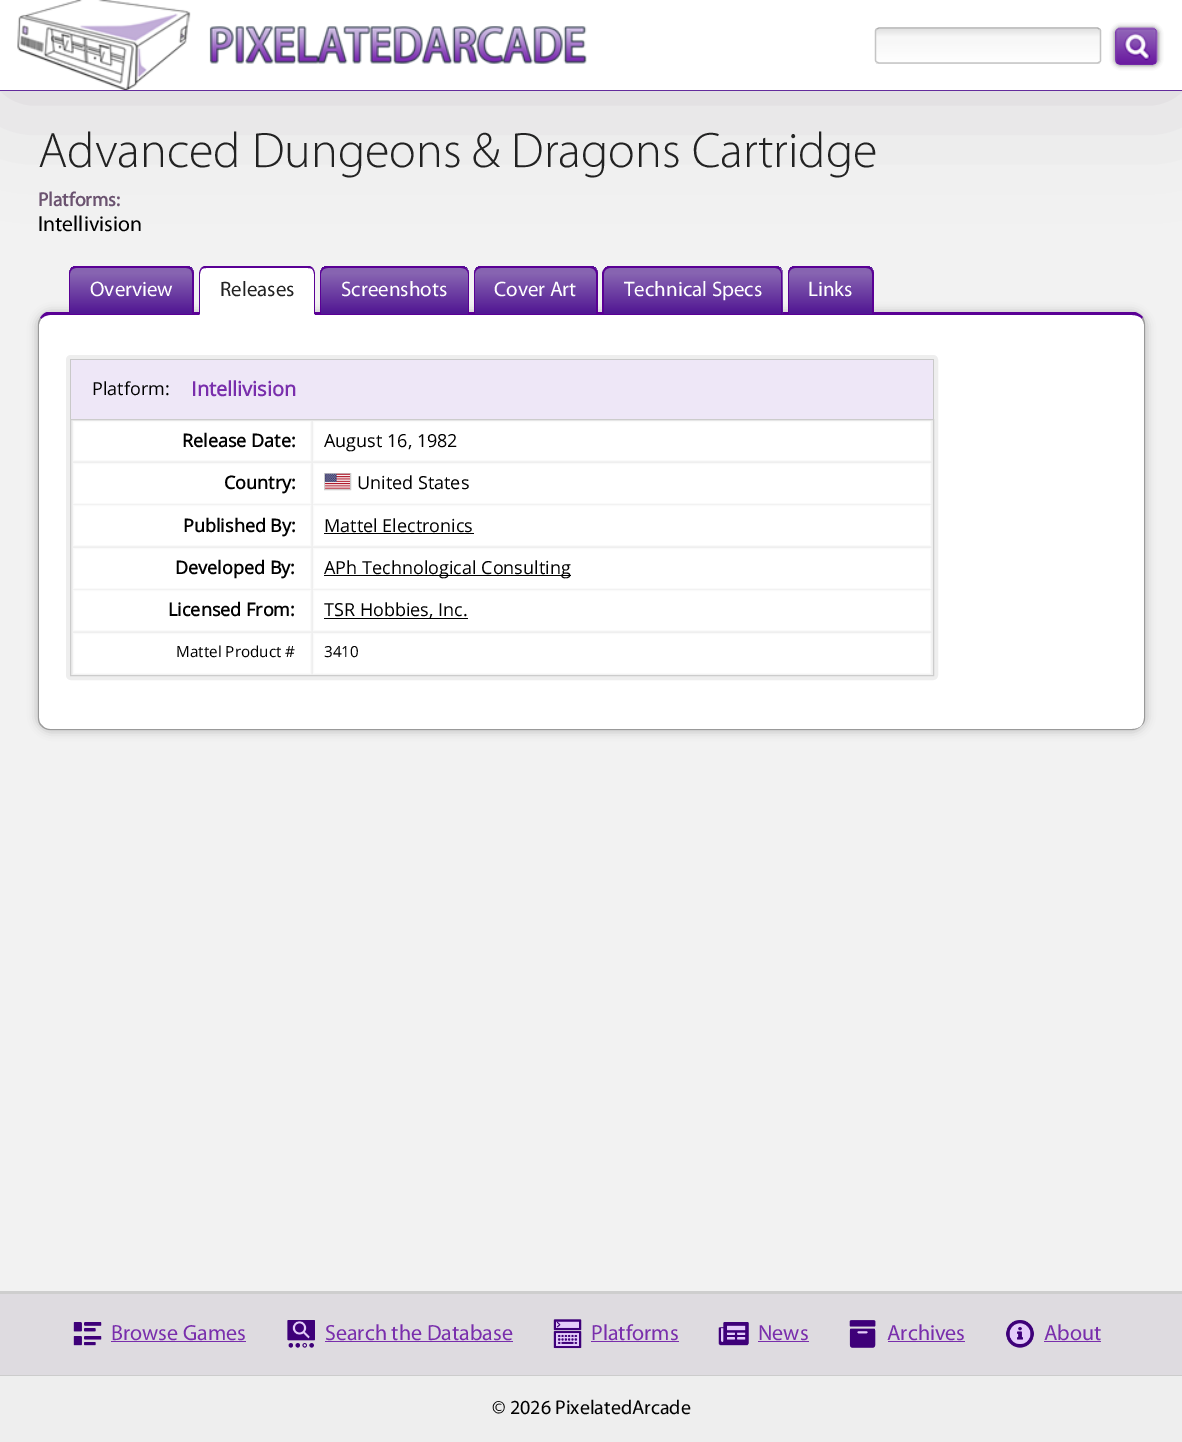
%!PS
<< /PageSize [1182 1442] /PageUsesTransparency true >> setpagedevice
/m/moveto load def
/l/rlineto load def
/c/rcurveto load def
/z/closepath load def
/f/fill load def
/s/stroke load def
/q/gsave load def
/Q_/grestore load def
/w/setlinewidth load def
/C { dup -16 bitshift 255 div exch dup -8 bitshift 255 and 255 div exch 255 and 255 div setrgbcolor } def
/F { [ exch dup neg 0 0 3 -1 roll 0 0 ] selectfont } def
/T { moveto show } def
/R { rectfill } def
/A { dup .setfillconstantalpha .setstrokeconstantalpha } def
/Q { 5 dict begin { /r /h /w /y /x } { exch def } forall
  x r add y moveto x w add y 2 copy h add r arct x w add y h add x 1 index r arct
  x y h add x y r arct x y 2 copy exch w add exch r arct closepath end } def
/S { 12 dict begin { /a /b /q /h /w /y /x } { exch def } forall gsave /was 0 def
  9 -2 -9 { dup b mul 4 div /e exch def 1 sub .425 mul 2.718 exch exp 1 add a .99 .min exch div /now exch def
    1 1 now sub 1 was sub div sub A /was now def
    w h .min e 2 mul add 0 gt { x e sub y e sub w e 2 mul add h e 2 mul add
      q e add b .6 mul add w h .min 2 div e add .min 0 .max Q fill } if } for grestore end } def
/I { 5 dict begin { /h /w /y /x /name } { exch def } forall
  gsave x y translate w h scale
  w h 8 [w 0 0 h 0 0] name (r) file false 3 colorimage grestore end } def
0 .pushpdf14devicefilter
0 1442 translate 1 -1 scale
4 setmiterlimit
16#F2F2F2 C
0 0 1182 1442 R
16#6B5370 C
0 0 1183 91 0 59 .22 S
16#FFFFFF C
0 0 1182 90 R
16#632C9C C
0 90 1182 1 R
(1.rgb) 17 0 570 90 I
q
875 28 226 36 4 Q clip newpath
q 875 29 m 226 0 l 0 34 l -226 0 l z clip newpath
<< /ShadingType 2 /ColorSpace /DeviceRGB /Coords [988 29 988 63] /Extend [true true] /Function << /FunctionType 3 /Domain [0 1] /Functions [<< /FunctionType 2 /Domain [0 1] /C0 [.89 .89 .89] /C1 [.89 .89 .89] /N 1 >> << /FunctionType 2 /Domain [0 1] /C0 [.89 .89 .89] /C1 [.969 .969 .969] /N 1 >> << /FunctionType 2 /Domain [0 1] /C0 [.969 .969 .969] /C1 [.969 .969 .969] /N 1 >> << /FunctionType 2 /Domain [0 1] /C0 [.969 .969 .969] /C1 [1 1 1] /N 1 >>] /Bounds [.02 .23 .35] /Encode [0 1 0 1 0 1 0 1] >> >> shfill Q_
q 875 63 m 226 0 l 0 1 l -226 0 l z clip newpath
<< /ShadingType 2 /ColorSpace /DeviceRGB /Coords [988 62 988 96] /Extend [true true] /Function << /FunctionType 3 /Domain [0 1] /Functions [<< /FunctionType 2 /Domain [0 1] /C0 [.89 .89 .89] /C1 [.89 .89 .89] /N 1 >> << /FunctionType 2 /Domain [0 1] /C0 [.89 .89 .89] /C1 [.969 .969 .969] /N 1 >> << /FunctionType 2 /Domain [0 1] /C0 [.969 .969 .969] /C1 [.969 .969 .969] /N 1 >> << /FunctionType 2 /Domain [0 1] /C0 [.969 .969 .969] /C1 [1 1 1] /N 1 >>] /Bounds [.02 .23 .35] /Encode [0 1 0 1 0 1 0 1] >> >> shfill Q_
Q_
16#AEAEAE C
1.2 w
876.5 29 m 2.5 -1 l 218.5 0 l 2 1 l s
16#C4C4C4 C
1099.5 29 m 1 .5 1 1.5 1 2 c 0 29 l 0 1 0 1.5 -1 2 c s
16#C3C3C3 C
1099.5 62 m -2 1 l -218.5 0 l -2.5 -1 l s
16#C5C5C5 C
876.5 62 m -.5 -.5 -1 -1 -1 -2 c 0 -29 l 0 -.5 .5 -1.5 1 -2 c s
16#000000 C
1115 28 43 37 5 2.5 .55 S
(2.rgb) 1114 27 44 38 I
/Myriad-Light 50.1 F
16#222222 C
(Advanced Dungeons & Dragons Cartridge) 38 167 T
/Myriad-Bold 19.5 F
16#6B5370 C
(Platforms:) 38 206 T
/Myriad-Regular 21.75 F
16#000000 C
(Intellivision) 38 231 T
q
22 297 m 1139 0 l 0 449 l -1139 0 l z 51 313 m 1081 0 l 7 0 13 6 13 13 c 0 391 l 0 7 -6 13 -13 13 c -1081 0 l -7 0 -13 -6 -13 -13 c 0 -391 l 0 -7 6 -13 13 -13 c z eoclip newpath
38 313 1107 417 13 5 .29 S
Q_
16#FFFFFF C
50 315 m 1082 0 l 7 0 12 4 12 10 c 0 393 l 0 6 -5 11 -12 11 c -1082 0 l -6 0 -11 -5 -11 -11 c 0 -393 l 0 -6 5 -10 11 -10 c z f
16#5A0095 C
50 315 m -4 0 -7 2 -9 4 c -1 -1 l 2 -3 4 -5 7 -6 c 1088 0 l 3 1 6 3 8 5 c -1 2 l -2 -3 -6 -4 -10 -4 c z f
q
77 266 m 109 0 l 4.5 0 8 3.5 8 8 c 0 40 l -125 0 l 0 -40 l 0 -4.5 3.5 -8 8 -8 c z clip newpath
q 69 268 m 125 0 l 0 46 l -125 0 l z clip newpath
<< /ShadingType 2 /ColorSpace /DeviceRGB /Coords [131 268 131 314] /Extend [true true] /Function << /FunctionType 3 /Domain [0 1] /Functions [<< /FunctionType 2 /Domain [0 1] /C0 [.529 .392 .694] /C1 [.529 .392 .694] /N 1 >> << /FunctionType 2 /Domain [0 1] /C0 [.529 .392 .694] /C1 [.322 .094 .58] /N 1 >> << /FunctionType 2 /Domain [0 1] /C0 [.322 .094 .58] /C1 [.322 .094 .58] /N 1 >>] /Bounds [.12 .97] /Encode [0 1 0 1 0 1] >> >> shfill Q_
q 69 266 m 125 0 l 0 2 l -125 0 l z clip newpath
<< /ShadingType 2 /ColorSpace /DeviceRGB /Coords [131 221 131 268] /Extend [true true] /Function << /FunctionType 3 /Domain [0 1] /Functions [<< /FunctionType 2 /Domain [0 1] /C0 [.529 .392 .694] /C1 [.529 .392 .694] /N 1 >> << /FunctionType 2 /Domain [0 1] /C0 [.529 .392 .694] /C1 [.322 .094 .58] /N 1 >> << /FunctionType 2 /Domain [0 1] /C0 [.322 .094 .58] /C1 [.322 .094 .58] /N 1 >>] /Bounds [.12 .97] /Encode [0 1 0 1 0 1] >> >> shfill Q_
Q_
76 266 m 110 0 l 4 0 8 4 8 8 c 0 40 l -125 0 l 0 -40 l 0 -4 3 -8 7 -8 c z 76 268 m 110 0 l 4 0 6 2 6 6 c 0 40 l -122 0 l 0 -40 l 0 -4 3 -6 6 -6 c z eofill
/Myriad-Regular 21 F
16#FFFFFF C
(Overview) 90 296 T
207 266 m 100 0 l 4.5 0 8 3.5 8 8 c 0 41 l -116 0 l 0 -41 l 0 -4.5 3.5 -8 8 -8 c z f
16#222222 C
(Releases) 220 296 T
16#5A0095 C
206 268 m -1 0 -3 0 -4 1 c -1 -1 l 3 -2 l 106 0 l 3 2 l -1 1 l -1 -1 -3 -1 -4 -1 c z f
315 315 m 0 -41 l 0 -2 -1 -4 -2 -6 c -1 1 l 1 1 2 3 2 5 c 0 40 l z f
16#FFFFFF C
315 315 m -1 -1 l -114 0 l -1 1 l z f
16#5A0095 C
199 315 m 0 -41 l 0 -2 1 -4 2 -6 c 1 1 l -1 1 -2 3 -2 5 c 0 40 l z f
q
328 266 m 133 0 l 4.5 0 8 3.5 8 8 c 0 40 l -149 0 l 0 -40 l 0 -4.5 3.5 -8 8 -8 c z clip newpath
q 320 268 m 149 0 l 0 46 l -149 0 l z clip newpath
<< /ShadingType 2 /ColorSpace /DeviceRGB /Coords [394 268 394 314] /Extend [true true] /Function << /FunctionType 3 /Domain [0 1] /Functions [<< /FunctionType 2 /Domain [0 1] /C0 [.529 .392 .694] /C1 [.529 .392 .694] /N 1 >> << /FunctionType 2 /Domain [0 1] /C0 [.529 .392 .694] /C1 [.322 .094 .58] /N 1 >> << /FunctionType 2 /Domain [0 1] /C0 [.322 .094 .58] /C1 [.322 .094 .58] /N 1 >>] /Bounds [.12 .97] /Encode [0 1 0 1 0 1] >> >> shfill Q_
q 320 266 m 149 0 l 0 2 l -149 0 l z clip newpath
<< /ShadingType 2 /ColorSpace /DeviceRGB /Coords [394 221 394 268] /Extend [true true] /Function << /FunctionType 3 /Domain [0 1] /Functions [<< /FunctionType 2 /Domain [0 1] /C0 [.529 .392 .694] /C1 [.529 .392 .694] /N 1 >> << /FunctionType 2 /Domain [0 1] /C0 [.529 .392 .694] /C1 [.322 .094 .58] /N 1 >> << /FunctionType 2 /Domain [0 1] /C0 [.322 .094 .58] /C1 [.322 .094 .58] /N 1 >>] /Bounds [.12 .97] /Encode [0 1 0 1 0 1] >> >> shfill Q_
Q_
328 266 m 133 0 l 4 0 8 4 8 8 c 0 40 l -149 0 l 0 -40 l 0 -4 3 -8 8 -8 c z 328 268 m 133 0 l 4 0 7 2 7 6 c 0 40 l -147 0 l 0 -40 l 0 -4 3 -6 7 -6 c z eofill
16#FFFFFF C
(Screenshots) 341 296 T
q
482 266 m 108 0 l 4.5 0 8 3.5 8 8 c 0 40 l -124 0 l 0 -40 l 0 -4.5 3.5 -8 8 -8 c z clip newpath
q 474 268 m 124 0 l 0 46 l -124 0 l z clip newpath
<< /ShadingType 2 /ColorSpace /DeviceRGB /Coords [536 268 536 314] /Extend [true true] /Function << /FunctionType 3 /Domain [0 1] /Functions [<< /FunctionType 2 /Domain [0 1] /C0 [.529 .392 .694] /C1 [.529 .392 .694] /N 1 >> << /FunctionType 2 /Domain [0 1] /C0 [.529 .392 .694] /C1 [.322 .094 .58] /N 1 >> << /FunctionType 2 /Domain [0 1] /C0 [.322 .094 .58] /C1 [.322 .094 .58] /N 1 >>] /Bounds [.12 .97] /Encode [0 1 0 1 0 1] >> >> shfill Q_
q 474 266 m 124 0 l 0 2 l -124 0 l z clip newpath
<< /ShadingType 2 /ColorSpace /DeviceRGB /Coords [536 221 536 268] /Extend [true true] /Function << /FunctionType 3 /Domain [0 1] /Functions [<< /FunctionType 2 /Domain [0 1] /C0 [.529 .392 .694] /C1 [.529 .392 .694] /N 1 >> << /FunctionType 2 /Domain [0 1] /C0 [.529 .392 .694] /C1 [.322 .094 .58] /N 1 >> << /FunctionType 2 /Domain [0 1] /C0 [.322 .094 .58] /C1 [.322 .094 .58] /N 1 >>] /Bounds [.12 .97] /Encode [0 1 0 1 0 1] >> >> shfill Q_
Q_
16#5A0095 C
481 266 m 109 0 l 4 0 8 4 8 8 c 0 40 l -124 0 l 0 -40 l 0 -4 3 -8 7 -8 c z 481 268 m 109 0 l 3 0 6 2 6 6 c 0 40 l -121 0 l 0 -40 l 0 -4 3 -6 6 -6 c z eofill
16#FFFFFF C
(Cover Art) 494 296 T
q
611 266 m 164 0 l 4.5 0 8 3.5 8 8 c 0 40 l -180 0 l 0 -40 l 0 -4.5 3.5 -8 8 -8 c z clip newpath
q 603 268 m 180 0 l 0 46 l -180 0 l z clip newpath
<< /ShadingType 2 /ColorSpace /DeviceRGB /Coords [693 268 693 314] /Extend [true true] /Function << /FunctionType 3 /Domain [0 1] /Functions [<< /FunctionType 2 /Domain [0 1] /C0 [.529 .392 .694] /C1 [.529 .392 .694] /N 1 >> << /FunctionType 2 /Domain [0 1] /C0 [.529 .392 .694] /C1 [.322 .094 .58] /N 1 >> << /FunctionType 2 /Domain [0 1] /C0 [.322 .094 .58] /C1 [.322 .094 .58] /N 1 >>] /Bounds [.12 .97] /Encode [0 1 0 1 0 1] >> >> shfill Q_
q 603 266 m 180 0 l 0 2 l -180 0 l z clip newpath
<< /ShadingType 2 /ColorSpace /DeviceRGB /Coords [693 221 693 268] /Extend [true true] /Function << /FunctionType 3 /Domain [0 1] /Functions [<< /FunctionType 2 /Domain [0 1] /C0 [.529 .392 .694] /C1 [.529 .392 .694] /N 1 >> << /FunctionType 2 /Domain [0 1] /C0 [.529 .392 .694] /C1 [.322 .094 .58] /N 1 >> << /FunctionType 2 /Domain [0 1] /C0 [.322 .094 .58] /C1 [.322 .094 .58] /N 1 >>] /Bounds [.12 .97] /Encode [0 1 0 1 0 1] >> >> shfill Q_
Q_
16#5A0095 C
610 266 m 165 0 l 4 0 7 4 7 8 c 0 40 l -180 0 l 0 -40 l 0 -4 4 -8 8 -8 c z 610 268 m 165 0 l 3 0 6 2 6 6 c 0 40 l -177 0 l 0 -40 l 0 -4 3 -6 6 -6 c z eofill
16#FFFFFF C
(Technical Specs) 624 296 T
q
796 266 m 70 0 l 4.5 0 8 3.5 8 8 c 0 40 l -86 0 l 0 -40 l 0 -4.5 3.5 -8 8 -8 c z clip newpath
q 788 268 m 86 0 l 0 46 l -86 0 l z clip newpath
<< /ShadingType 2 /ColorSpace /DeviceRGB /Coords [831 268 831 314] /Extend [true true] /Function << /FunctionType 3 /Domain [0 1] /Functions [<< /FunctionType 2 /Domain [0 1] /C0 [.529 .392 .694] /C1 [.529 .392 .694] /N 1 >> << /FunctionType 2 /Domain [0 1] /C0 [.529 .392 .694] /C1 [.322 .094 .58] /N 1 >> << /FunctionType 2 /Domain [0 1] /C0 [.322 .094 .58] /C1 [.322 .094 .58] /N 1 >>] /Bounds [.12 .97] /Encode [0 1 0 1 0 1] >> >> shfill Q_
q 788 266 m 86 0 l 0 2 l -86 0 l z clip newpath
<< /ShadingType 2 /ColorSpace /DeviceRGB /Coords [831 221 831 268] /Extend [true true] /Function << /FunctionType 3 /Domain [0 1] /Functions [<< /FunctionType 2 /Domain [0 1] /C0 [.529 .392 .694] /C1 [.529 .392 .694] /N 1 >> << /FunctionType 2 /Domain [0 1] /C0 [.529 .392 .694] /C1 [.322 .094 .58] /N 1 >> << /FunctionType 2 /Domain [0 1] /C0 [.322 .094 .58] /C1 [.322 .094 .58] /N 1 >>] /Bounds [.12 .97] /Encode [0 1 0 1 0 1] >> >> shfill Q_
Q_
16#5A0095 C
795 266 m 71 0 l 4 0 8 4 8 8 c 0 40 l -86 0 l 0 -40 l 0 -4 3 -8 7 -8 c z 795 268 m 71 0 l 4 0 6 2 6 6 c 0 40 l -83 0 l 0 -40 l 0 -4 3 -6 6 -6 c z eofill
16#FFFFFF C
(Links) 808 296 T
16#999999 C
1145 718 m 0 -393 l 0 -3 -1 -5 -2 -8 c -1 2 l 1 2 2 4 2 6 c 0 393 l 0 3 -1 6 -3 8 c 3 -2 4 -5 4 -8 c z f
50 730 m 1082 0 l 4 0 7 -2 9 -4 c -2 2 -5 3 -9 3 c -1082 0 l -3 0 -6 -1 -8 -4 c -1 1 l 2 2 5 4 9 4 c z f
41 726 m -2 -2 -3 -5 -3 -8 c 0 -393 l 0 -3 1 -5 2 -7 c 1 1 l -1 2 -2 4 -2 6 c 0 393 l 0 3 1 6 3 7 c z f
16#EEEEEE C
4 w
68 357 868 321 3 Q s
16#EEE7F7 C
71 360 862 59 R
16#C9C9C9 C
70 359 864 1 R
933 359 1 60 R
70 359 1 60 R
/OpenSans-Regular 18 F
16#000000 C
(Platform:) 92 395 T
/OpenSans-Bold 20 F
16#792EAC C
(Intellivision) 191 396 T
16#EFEFEF C
70.5 419.5 m 863 0 l 0 256 l -863 0 l z q f Q_
16#CCCCCC C
1 w
s
16#FFFFFF C
73.5 421.5 m 237 0 l 0 39 l -237 0 l z q f Q_
16#FAFAFA C
s
/OpenSans-Bold 18 F
16#000000 C
(Release Date:) 182 447 T
16#FFFFFF C
313.5 421.5 m 617 0 l 0 39 l -617 0 l z q f Q_
16#FAFAFA C
s
/OpenSans-Regular 18 F
16#000000 C
(August 16, 1982) 324 447 T
16#FFFFFF C
73.5 463.5 m 237 0 l 0 40 l -237 0 l z q f Q_
16#FAFAFA C
s
/OpenSans-Bold 18 F
16#000000 C
(Country:) 224 489 T
16#FFFFFF C
313.5 463.5 m 617 0 l 0 40 l -617 0 l z q f Q_
16#FAFAFA C
s
16#CCCCCC C
324.5 473.5 26 16 rectstroke
(3.rgb) 325 473 25 16 I
/OpenSans-Regular 18 F
16#000000 C
(United States) 357 489 T
16#FFFFFF C
73.5 505.5 m 237 0 l 0 40 l -237 0 l z q f Q_
16#FAFAFA C
s
/OpenSans-Bold 18 F
16#000000 C
(Published By:) 183 532 T
16#FFFFFF C
313.5 505.5 m 617 0 l 0 40 l -617 0 l z q f Q_
16#FAFAFA C
s
/OpenSans-Regular 18 F
16#000000 C
(Mattel Electronics) 324 532 T
324 533 150 1 R
16#FFFFFF C
73.5 548.5 m 237 0 l 0 40 l -237 0 l z q f Q_
16#FAFAFA C
s
/OpenSans-Bold 18 F
16#000000 C
(Developed By:) 175 574 T
16#FFFFFF C
313.5 548.5 m 617 0 l 0 40 l -617 0 l z q f Q_
16#FAFAFA C
s
16#000000 C
324 575 247 1 R
/OpenSans-Regular 18 F
(APh Technological Consulting) 324 574 T
16#FFFFFF C
73.5 590.5 m 237 0 l 0 40 l -237 0 l z q f Q_
16#FAFAFA C
s
/OpenSans-Bold 18 F
16#000000 C
(Licensed From:) 168 616 T
16#FFFFFF C
313.5 590.5 m 617 0 l 0 40 l -617 0 l z q f Q_
16#FAFAFA C
s
16#000000 C
324 618 144 1 R
/OpenSans-Regular 18 F
(TSR Hobbies, Inc.) 324 616 T
16#FFFFFF C
73.5 633.5 m 237 0 l 0 40 l -237 0 l z q f Q_
16#FAFAFA C
s
/OpenSans-Regular 15.25 F
16#000000 C
(Mattel Product #) 176 657 T
16#FFFFFF C
313.5 633.5 m 617 0 l 0 40 l -617 0 l z q f Q_
16#FAFAFA C
s
16#000000 C
(3410) 324 657 T
16#EEEEEE C
0 1376 1182 66 R
16#CECECE C
0 1291 1182 3 R
16#DEDBE0 C
0 1294 1182 81 R
16#CCCCCC C
0 1375 1182 1 R
(4.rgb) 73 1322 29 24 I
/Myriad-Regular 22 F
16#792EAC C
(Browse Games) 111 1340 T
111 1341 135 1 R
(5.rgb) 287 1320 28 28 I
(Search the Database) 325 1340 T
325 1341 188 1 R
(6.rgb) 553 1319 29 30 I
(Platforms) 591 1340 T
591 1341 88 1 R
(7.rgb) 718 1322 31 24 I
(News) 758 1340 T
758 1341 51 1 R
(8.rgb) 849 1320 27 28 I
(Archives) 887 1340 T
888 1341 77 1 R
(9.rgb) 1006 1320 28 28 I
(About) 1044 1340 T
1044 1341 57 1 R
/Myriad-Regular 20 F
16#000000 C
(© 2026 PixelatedArcade) 492 1414 T
.poppdf14devicefilter showpage
